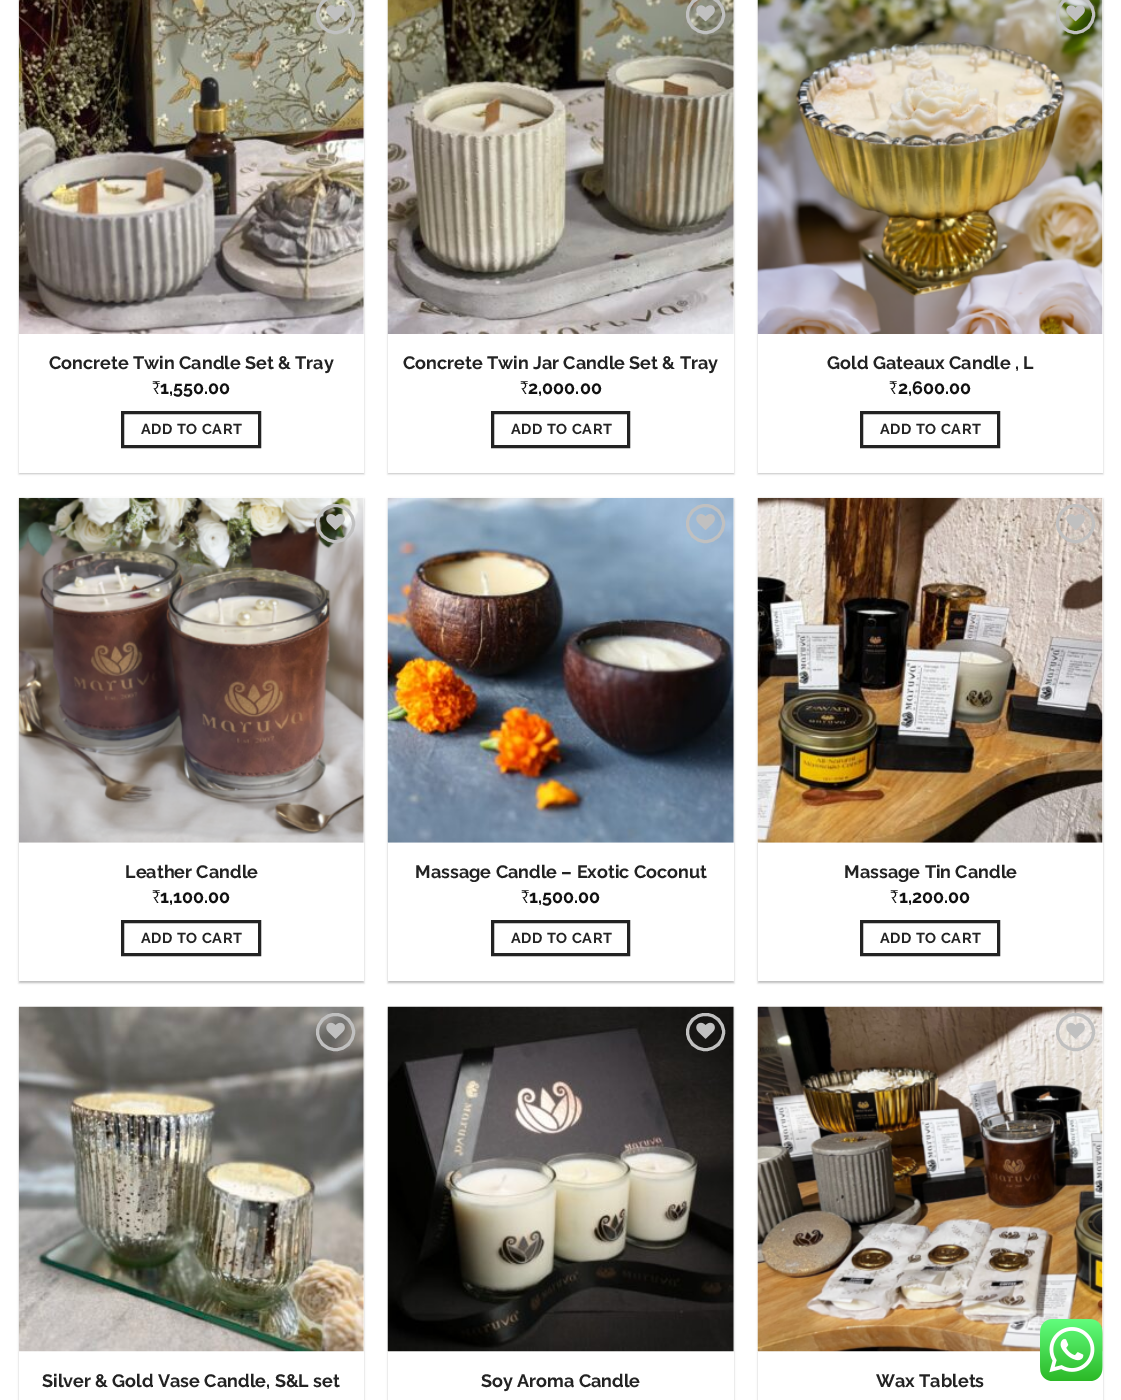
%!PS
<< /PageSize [1121 1400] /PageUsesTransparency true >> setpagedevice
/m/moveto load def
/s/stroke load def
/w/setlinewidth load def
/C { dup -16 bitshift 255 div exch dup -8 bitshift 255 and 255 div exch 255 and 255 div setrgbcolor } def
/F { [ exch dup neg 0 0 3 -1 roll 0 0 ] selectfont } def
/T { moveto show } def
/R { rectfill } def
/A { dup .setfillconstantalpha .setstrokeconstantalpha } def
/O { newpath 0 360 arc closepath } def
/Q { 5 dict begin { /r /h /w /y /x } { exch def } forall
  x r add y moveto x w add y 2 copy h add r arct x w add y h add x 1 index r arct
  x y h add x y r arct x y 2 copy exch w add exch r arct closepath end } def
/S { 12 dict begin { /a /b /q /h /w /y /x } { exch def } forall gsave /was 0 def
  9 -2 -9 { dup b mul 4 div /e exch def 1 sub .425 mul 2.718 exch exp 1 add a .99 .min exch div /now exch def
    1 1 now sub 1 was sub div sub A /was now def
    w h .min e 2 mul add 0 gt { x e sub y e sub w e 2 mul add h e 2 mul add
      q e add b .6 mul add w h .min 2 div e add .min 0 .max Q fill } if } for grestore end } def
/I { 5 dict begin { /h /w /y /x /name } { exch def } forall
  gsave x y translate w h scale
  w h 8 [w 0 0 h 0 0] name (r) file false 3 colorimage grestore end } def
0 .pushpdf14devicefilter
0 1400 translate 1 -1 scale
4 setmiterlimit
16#FFFFFF C
0 0 1121 1400 R
16#000000 C
19 -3 345 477 0 1 .24 S
16#FFFFFF C
19 0 345 473 R
(2.rgb) 18 0 346 334 I
16#C0C0C0 C
3 w
335.5 14.5 18 O s
(1.rgb) 326 5 19 17 I
/Raleway-Bold 18 F
16#232323 C
(Concrete Twin Candle Set & Tray) 49 369 T
/Raleway-Regular 18 F
16#111111 C
(₹) 152 394 T
/Raleway-Bold 18 F
(1,550.00) 160 394 T
16#232323 C
122.5 412.5 137 34 rectstroke
/Raleway-Bold 14.5 F
141 434 m .5 0 (ADD TO CART) ashow
16#000000 C
388 -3 346 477 0 1 .24 S
16#FFFFFF C
388 0 346 473 R
(4.rgb) 387 0 347 334 I
16#C0C0C0 C
705.5 14.5 18 O s
(3.rgb) 696 5 19 17 I
/Raleway-Bold 18 F
16#232323 C
(Concrete Twin Jar Candle Set & Tray) 403 369 T
/Raleway-Regular 18 F
16#111111 C
(₹) 520 394 T
/Raleway-Bold 18 F
(2,000.00) 528 394 T
16#232323 C
492.5 412.5 136 34 rectstroke
/Raleway-Bold 14.5 F
511 434 m .5 0 (ADD TO CART) ashow
16#000000 C
758 -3 345 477 0 1 .24 S
16#FFFFFF C
758 0 345 473 R
(6.rgb) 757 0 346 334 I
16#C0C0C0 C
1075.5 14.5 18 O s
(5.rgb) 1066 5 19 17 I
/Raleway-Bold 18 F
16#232323 C
(Gold Gateaux Candle , L) 827 369 T
/Raleway-Regular 18 F
16#111111 C
(₹) 889 394 T
/Raleway-Bold 18 F
(2,600.00) 898 394 T
16#232323 C
861.5 412.5 137 34 rectstroke
/Raleway-Bold 14.5 F
880 434 m .5 0 (ADD TO CART) ashow
16#000000 C
19 499 345 484 0 1 .24 S
21 501 340 479 0 2 .12 S
16#FFFFFF C
19 498 345 483 R
(7.rgb) 18 497 346 346 I
16#C0C0C0 C
335.5 523.5 18 O s
(8.rgb) 326 514 19 16 I
/Raleway-Bold 18 F
16#232323 C
(Leather Candle) 125 878 T
/Raleway-Regular 18 F
16#111111 C
(₹) 152 903 T
/Raleway-Bold 18 F
(1,100.00) 160 903 T
16#232323 C
122.5 921.5 137 33 rectstroke
/Raleway-Bold 14.5 F
141 943 m .5 0 (ADD TO CART) ashow
16#000000 C
388 499 346 484 0 1 .24 S
390 501 341 479 0 2 .12 S
16#FFFFFF C
388 498 346 483 R
(9.rgb) 387 497 347 346 I
16#C0C0C0 C
705.5 523.5 18 O s
(10.rgb) 696 514 19 16 I
/Raleway-Bold 18 F
16#232323 C
(Massage Candle – Exotic Coconut) 415 878 T
/Raleway-Regular 18 F
16#111111 C
(₹) 521 903 T
/Raleway-Bold 18 F
(1,500.00) 529 903 T
16#232323 C
492.5 921.5 136 33 rectstroke
/Raleway-Bold 14.5 F
511 943 m .5 0 (ADD TO CART) ashow
16#000000 C
758 499 345 484 0 1 .24 S
760 501 340 479 0 2 .12 S
16#FFFFFF C
758 498 345 483 R
(11.rgb) 757 497 346 346 I
16#C0C0C0 C
1075.5 523.5 18 O s
(12.rgb) 1066 514 19 16 I
/Raleway-Bold 18 F
16#232323 C
(Massage Tin Candle) 844 878 T
/Raleway-Regular 18 F
16#111111 C
(₹) 890 903 T
/Raleway-Bold 18 F
(1,200.00) 899 903 T
16#232323 C
861.5 921.5 137 33 rectstroke
/Raleway-Bold 14.5 F
880 943 m .5 0 (ADD TO CART) ashow
16#000000 C
19 1008 345 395 0 1 .24 S
16#FFFFFF C
19 1006 345 394 R
(13.rgb) 18 1006 346 346 I
16#C0C0C0 C
317.5 1014.5 36 35 17.5 Q s
(14.rgb) 326 1022 19 17 I
/Raleway-Bold 18 F
16#232323 C
(Silver & Gold Vase Candle, S&L set) 42 1387 T
16#000000 C
388 1008 346 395 0 1 .24 S
16#FFFFFF C
388 1006 346 394 R
(15.rgb) 387 1006 347 346 I
16#C0C0C0 C
687.5 1014.5 36 35 17.5 Q s
(16.rgb) 696 1022 19 17 I
16#232323 C
(Soy Aroma Candle) 481 1387 T
16#000000 C
758 1008 345 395 0 1 .24 S
16#FFFFFF C
758 1006 345 394 R
(17.rgb) 757 1006 346 346 I
16#C0C0C0 C
1057.5 1014.5 36 35 17.5 Q s
(18.rgb) 1066 1022 19 17 I
16#232323 C
(Wax Tablets) 876 1387 T
(19.rgb) 1040 1319 63 62 I
.poppdf14devicefilter showpage
